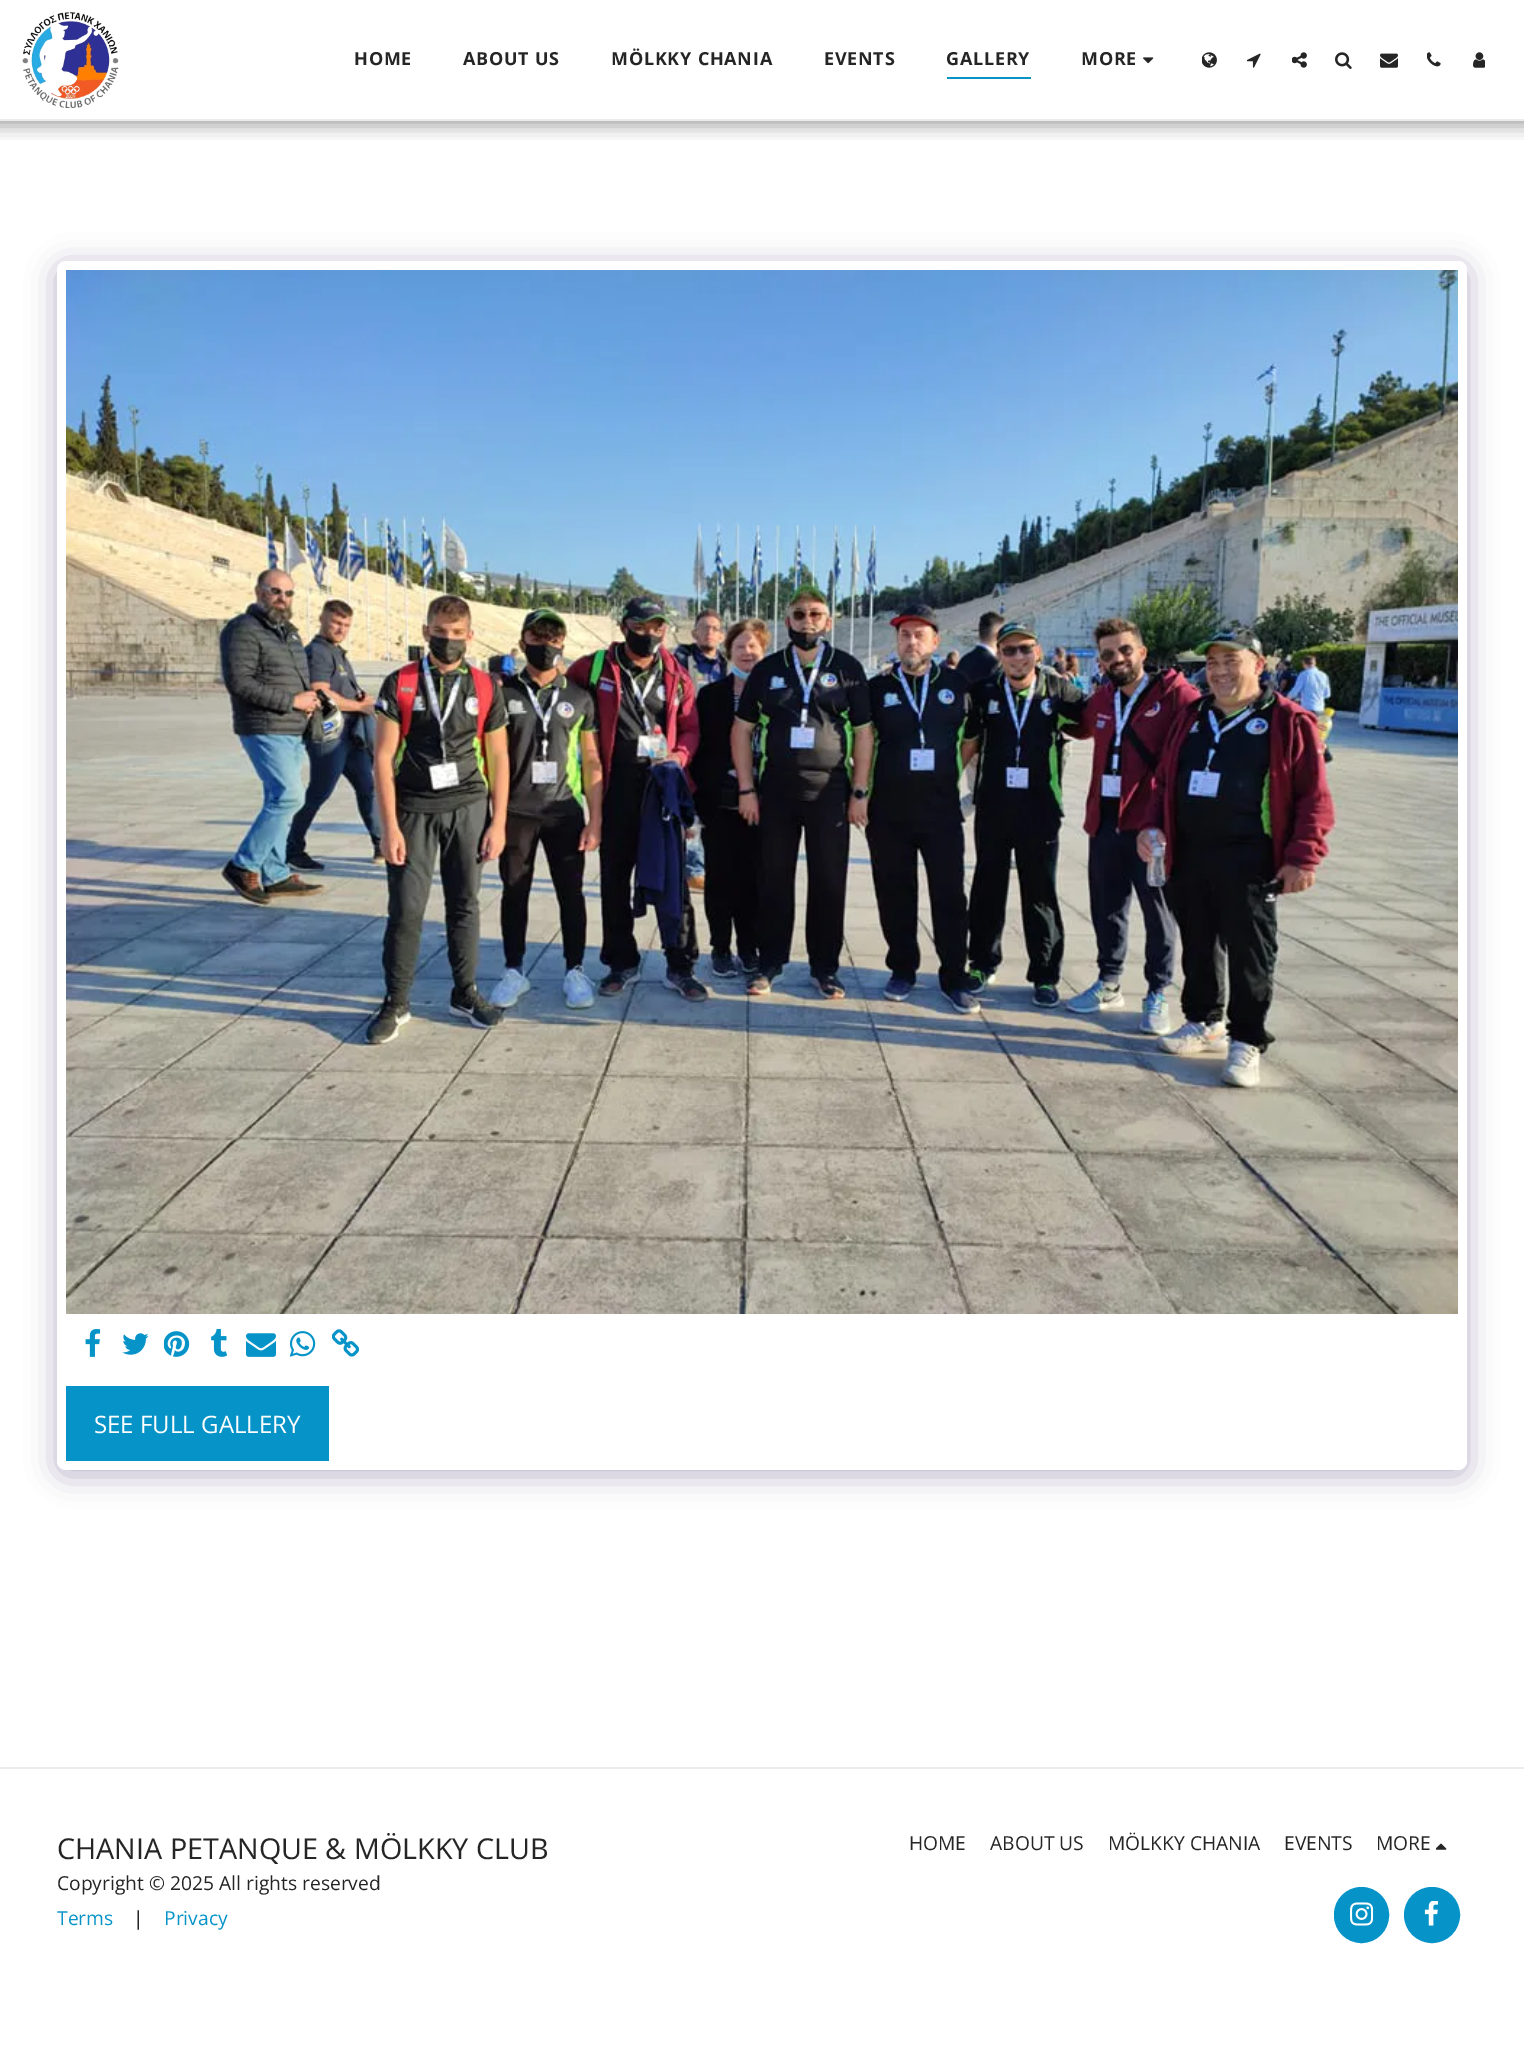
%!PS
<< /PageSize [1524 2058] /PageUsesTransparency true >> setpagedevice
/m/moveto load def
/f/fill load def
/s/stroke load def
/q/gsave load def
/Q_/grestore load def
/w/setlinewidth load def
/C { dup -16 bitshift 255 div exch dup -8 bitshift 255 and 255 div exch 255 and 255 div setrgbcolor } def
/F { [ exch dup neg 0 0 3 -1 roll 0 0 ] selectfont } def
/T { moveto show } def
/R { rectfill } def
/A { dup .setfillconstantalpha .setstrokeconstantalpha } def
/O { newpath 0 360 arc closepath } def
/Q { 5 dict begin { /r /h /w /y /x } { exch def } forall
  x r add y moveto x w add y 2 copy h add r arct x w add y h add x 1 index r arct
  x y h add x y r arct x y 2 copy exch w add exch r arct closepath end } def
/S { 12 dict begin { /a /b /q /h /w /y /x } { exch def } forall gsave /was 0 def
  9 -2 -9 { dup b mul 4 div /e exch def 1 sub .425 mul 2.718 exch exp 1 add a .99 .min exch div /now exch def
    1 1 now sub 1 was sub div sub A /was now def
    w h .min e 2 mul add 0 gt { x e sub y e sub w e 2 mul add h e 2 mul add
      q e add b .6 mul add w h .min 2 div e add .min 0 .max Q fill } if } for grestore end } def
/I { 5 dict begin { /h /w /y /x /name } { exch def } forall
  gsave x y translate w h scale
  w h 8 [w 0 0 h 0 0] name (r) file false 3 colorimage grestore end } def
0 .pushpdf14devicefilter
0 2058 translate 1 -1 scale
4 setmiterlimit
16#FFFFFF C
0 0 1524 2058 R
q
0 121 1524 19 rectclip
16#000000 C
-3 0 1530 126 0 9 .35 S
Q_
16#EBEBEB C
0 119 1524 2 R
(1.rgb) 22 12 97 96 I
/OpenSans-Bold 18 F
16#252525 C
354 65 m .75 0 (HOME) ashow
463 65 m .75 0 (ABOUT US) ashow
611 65 m .75 0 (MÖLKKY CHANIA) ashow
824 65 m .75 0 (EVENTS) ashow
946 65 m .75 0 (GALLERY) ashow
16#0693C8 C
947 77 84 2 R
16#252525 C
1081 65 m .75 0 (MORE) ashow
(2.rgb) 1143 57 11 7 I
(3.rgb) 1202 52 15 16 I
(4.rgb) 1247 53 14 15 I
(5.rgb) 1292 52 15 16 I
(6.rgb) 1335 52 17 17 I
(7.rgb) 1380 53 18 15 I
(8.rgb) 1427 52 14 15 I
(9.rgb) 1473 52 12 16 I
16#4D3F7A C
57 266 1410 1209 9 15 .4 S
16#FFFFFF C
57 261 1410 1209 9 Q f
(10.rgb) 66 270 1392 1044 I
(11.rgb) 85 1329 16 28 I
(12.rgb) 122 1333 27 22 I
(13.rgb) 164 1331 26 26 I
(14.rgb) 211 1329 17 28 I
(15.rgb) 246 1333 30 24 I
(16.rgb) 290 1331 26 26 I
(17.rgb) 332 1329 27 28 I
16#0693C8 C
66 1386 263 75 R
/OpenSans-Regular 24 F
16#FFFFFF C
(SEE FULL GALLERY) 94 1433 T
16#EBEBEB C
0 1767 1524 2 R
/OpenSans-Regular 28.75 F
16#252525 C
(CHANIA PETANQUE & MÖLKKY CLUB) 57 1859 T
/OpenSans-Regular 19.25 F
(Copyright © 2025 All rights reserved) 57 1890 T
16#0693C8 C
(Terms) 57 1925 T
16#252525 C
(|) 133 1925 T
16#0693C8 C
(Privacy) 164 1925 T
16#252525 C
(HOME) 909 1850 T
(ABOUT US) 990 1850 T
(MÖLKKY CHANIA) 1108 1850 T
(EVENTS) 1284 1850 T
(MORE) 1376 1850 T
(18.rgb) 1436 1843 11 7 I
16#0693C8 C
1335 1888 53 54 26.5 Q q f Q_
2 w
s
(19.rgb) 1350 1902 23 24 I
1432 1915 27 O q f Q_
s
(20.rgb) 1424 1901 14 25 I
.poppdf14devicefilter showpage
